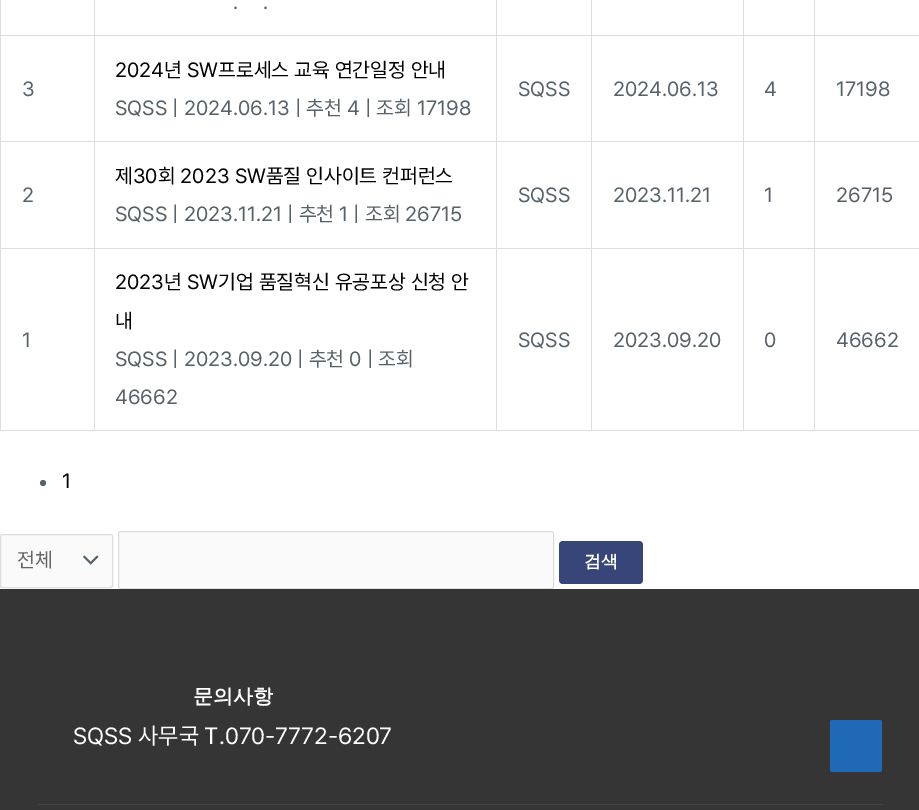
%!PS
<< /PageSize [919 810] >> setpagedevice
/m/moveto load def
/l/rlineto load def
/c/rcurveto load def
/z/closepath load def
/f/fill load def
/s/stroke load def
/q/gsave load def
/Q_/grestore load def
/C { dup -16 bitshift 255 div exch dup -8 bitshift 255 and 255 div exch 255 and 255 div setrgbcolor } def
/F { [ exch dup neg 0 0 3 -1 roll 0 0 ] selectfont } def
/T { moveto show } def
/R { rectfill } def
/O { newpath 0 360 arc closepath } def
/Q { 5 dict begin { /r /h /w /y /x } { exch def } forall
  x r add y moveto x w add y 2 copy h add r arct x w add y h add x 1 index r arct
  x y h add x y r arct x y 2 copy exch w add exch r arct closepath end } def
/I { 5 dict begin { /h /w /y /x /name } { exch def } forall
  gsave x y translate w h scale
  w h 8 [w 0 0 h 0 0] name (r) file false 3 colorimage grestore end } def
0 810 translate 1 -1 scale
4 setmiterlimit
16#FFFFFF C
0 0 919 810 R
16#DDDDDD C
0 0 1 431 R
94 0 1 431 R
1 35 94 1 R
496 0 1 431 R
95 35 403 1 R
/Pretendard-Regular 20.5 F
16#576168 C
(.) 233 9 T
(.) 263 9 T
16#DDDDDD C
591 0 1 431 R
498 35 95 1 R
743 0 1 431 R
593 35 151 1 R
814 0 1 431 R
744 35 175 1 R
1 141 918 1 R
16#576168 C
(3) 22 96 T
16#030000 C
(2024년 SW프로세스 교육 연간일정 안내) 115 77 T
16#576168 C
(SQSS | 2024.06.13 | 추천 4 | 조회 17198) 115 115 T
(SQSS) 518 96 T
(2024.06.13) 613 96 T
(4) 764 96 T
(17198) 836 96 T
16#DDDDDD C
1 248 918 1 R
16#576168 C
(2) 22 202 T
16#030000 C
(제30회 2023 SW품질 인사이트 컨퍼런스) 115 183 T
16#576168 C
(SQSS | 2023.11.21 | 추천 1 | 조회 26715) 115 221 T
(SQSS) 518 202 T
(2023.11.21) 613 202 T
(1) 764 202 T
(26715) 836 202 T
16#DDDDDD C
1 430 918 1 R
16#576168 C
(1) 22 347 T
16#030000 C
(2023년 SW기업 품질혁신 유공포상 신청 안) 115 289 T
(내) 115 328 T
16#576168 C
(SQSS | 2023.09.20 | 추천 0 | 조회) 115 366 T
(46662) 115 404 T
(SQSS) 518 347 T
(2023.09.20) 613 347 T
(0) 764 347 T
(46662) 836 347 T
43 483 3 O f
16#030000 C
(1) 62 488 T
16#FAFAFA C
0 534 113 54 2.5 Q f
(1.rgb) 83 555 16 10 I
16#DDDDDD C
.5 534.5 112 53 2 Q s
16#666666 C
(전체) 17 567 T
16#FAFAFA C
118.5 531.5 435 57 2 Q q f Q_
16#DDDDDD C
s
16#384578 C
559 541 84 43 4 Q f
/WenQuanYiZenHei-Bold 17 F
16#FFFFFF C
(검색) 584 567 T
16#353535 C
0 589 919 221 R
/WenQuanYiZenHei-Bold 20 F
16#FFFFFF C
(문의사항) 193 703 T
/Pretendard-Regular 23.3 F
(SQSS 사무국 T.070-7772-6207) 73 744 T
16#444444 C
38 804 845 1 R
16#2069B6 C
880 772 m -48 0 l -1 0 -2 -1 -2 -2 c 0 -48 l 0 -1 1 -2 2 -2 c 48 0 l 1 0 2 1 2 2 c 0 48 l 0 1 -1 2 -2 2 c z f
showpage
